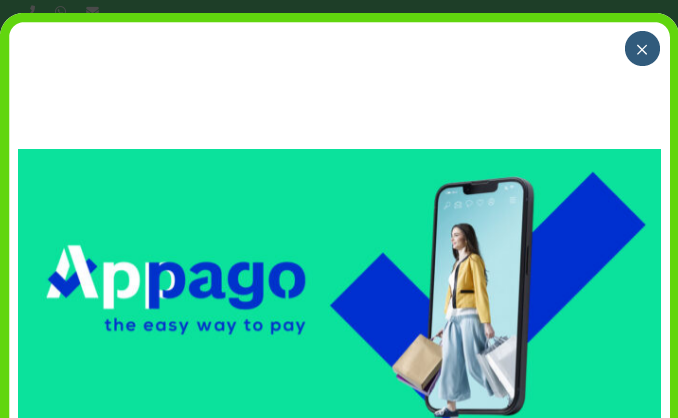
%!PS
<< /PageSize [678 418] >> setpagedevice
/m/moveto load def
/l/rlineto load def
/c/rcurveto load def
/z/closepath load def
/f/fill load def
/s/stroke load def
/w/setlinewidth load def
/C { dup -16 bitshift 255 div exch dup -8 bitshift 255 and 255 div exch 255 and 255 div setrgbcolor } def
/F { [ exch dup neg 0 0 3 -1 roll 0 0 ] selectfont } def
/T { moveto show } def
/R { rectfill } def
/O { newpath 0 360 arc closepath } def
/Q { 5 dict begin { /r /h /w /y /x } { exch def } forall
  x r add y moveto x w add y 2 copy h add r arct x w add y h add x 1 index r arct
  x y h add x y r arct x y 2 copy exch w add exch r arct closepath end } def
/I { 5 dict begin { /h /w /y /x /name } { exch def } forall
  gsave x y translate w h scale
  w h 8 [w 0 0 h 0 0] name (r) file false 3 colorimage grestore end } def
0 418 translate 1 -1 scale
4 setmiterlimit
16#1E3E28 C
0 0 678 418 R
(1.rgb) 23 5 12 9 I
(2.rgb) 55 6 11 7 I
(3.rgb) 86 6 13 7 I
16#FFFFFF C
24 13 m 631 0 l 13.5 0 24 10.5 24 24 c 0 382 l -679 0 l 0 -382 l 0 -13.5 10.5 -24 24 -24 c z f
16#61D60E C
9 w
4.5 17.5 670 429 19.5 Q s
16#315B7C C
642.5 48.5 17.5 O f
/LiberationSerif-Regular 25 F
16#FFFFFF C
(×) 635 58 T
(4.rgb) 18 149 643 269 I
showpage
